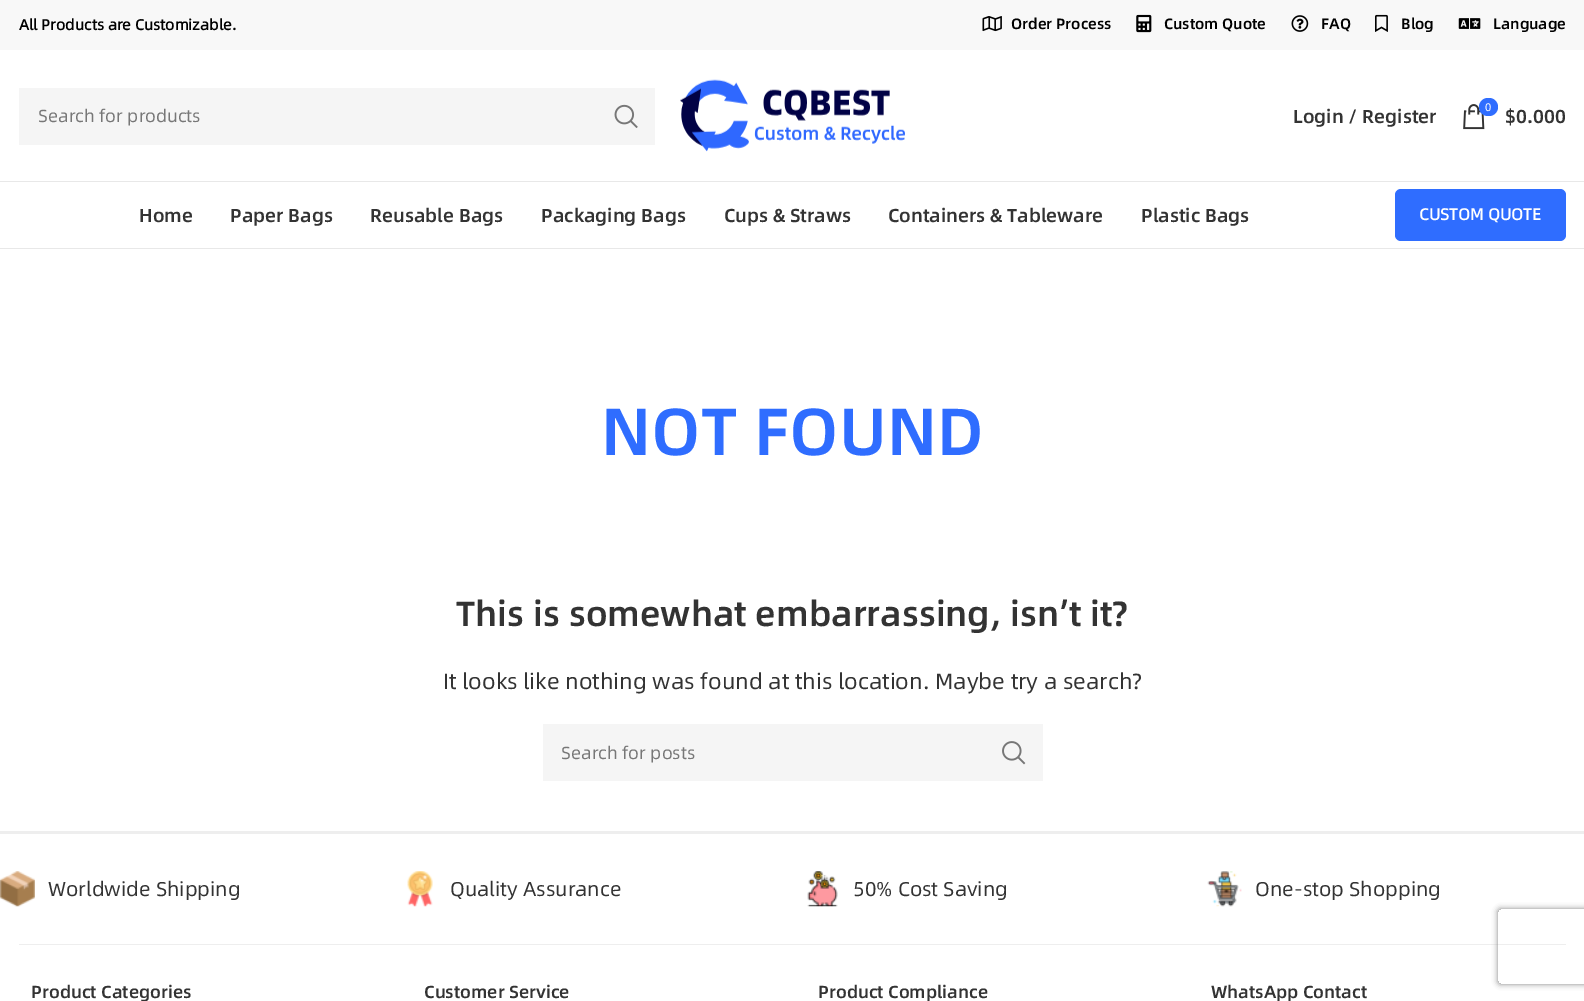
%!PS
<< /PageSize [1584 1001] /PageUsesTransparency true >> setpagedevice
/m/moveto load def
/l/rlineto load def
/c/rcurveto load def
/z/closepath load def
/f/fill load def
/q/gsave load def
/Q_/grestore load def
/C { dup -16 bitshift 255 div exch dup -8 bitshift 255 and 255 div exch 255 and 255 div setrgbcolor } def
/F { [ exch dup neg 0 0 3 -1 roll 0 0 ] selectfont } def
/T { moveto show } def
/R { rectfill } def
/A { dup .setfillconstantalpha .setstrokeconstantalpha } def
/Q { 5 dict begin { /r /h /w /y /x } { exch def } forall
  x r add y moveto x w add y 2 copy h add r arct x w add y h add x 1 index r arct
  x y h add x y r arct x y 2 copy exch w add exch r arct closepath end } def
/S { 12 dict begin { /a /b /q /h /w /y /x } { exch def } forall gsave /was 0 def
  9 -2 -9 { dup b mul 4 div /e exch def 1 sub .425 mul 2.718 exch exp 1 add a .99 .min exch div /now exch def
    1 1 now sub 1 was sub div sub A /was now def
    w h .min e 2 mul add 0 gt { x e sub y e sub w e 2 mul add h e 2 mul add
      q e add b .6 mul add w h .min 2 div e add .min 0 .max Q fill } if } for grestore end } def
/I { 5 dict begin { /h /w /y /x /name } { exch def } forall
  gsave x y translate w h scale
  w h 8 [w 0 0 h 0 0] name (r) file false 3 colorimage grestore end } def
0 .pushpdf14devicefilter
0 1001 translate 1 -1 scale
4 setmiterlimit
16#FFFFFF C
0 0 1584 1001 R
16#F8F8F8 C
0 0 1584 50 R
/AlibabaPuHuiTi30-Bold 15 F
16#000000 C
(All Products are Customizable.) 19 30 T
(1.rgb) 982 16 20 16 I
/AlibabaPuHuiTi30-SemiBold 15 F
(Order Process) 1011 29 T
(2.rgb) 1136 14 16 19 I
(Custom Quote) 1164 29 T
(3.rgb) 1291 15 18 17 I
(FAQ) 1321 29 T
(4.rgb) 1375 14 13 18 I
(Blog) 1401 29 T
(5.rgb) 1458 18 23 11 I
(Language) 1493 29 T
16#E8E8E8 C
0 181 1584 1 R
16#F5F5F5 C
19 88 636 57 R
/AlibabaPuHuiTi30-Regular 17.5 F
16#777777 C
(Search for products) 38 122 T
(6.rgb) 614 104 24 24 I
(7.rgb) 680 79 225 73 I
/AlibabaPuHuiTi30-SemiBold 18.75 F
16#333333 C
(Login / Register) 1293 123 T
(8.rgb) 1463 104 22 26 I
16#2F6DFF C
1479 98 19 18 9 Q f
/AlibabaPuHuiTi30-Regular 11 F
16#FFFFFF C
(0) 1485 111 T
/AlibabaPuHuiTi30-SemiBold 18.75 F
16#333333 C
($0.000) 1505 123 T
16#E8E8E8 C
0 248 1584 1 R
16#333333 C
(Home) 139 222 T
(Paper Bags) 230 222 T
(Reusable Bags) 370 222 T
(Packaging Bags) 541 222 T
(Cups & Straws) 724 222 T
(Containers & Tableware) 888 222 T
(Plastic Bags) 1141 222 T
16#2F6DFF C
1395 189 171 52 6 Q f
/AlibabaPuHuiTi30-Bold 16.25 F
16#FFFFFF C
(CUSTOM QUOTE) 1419 220 T
/AlibabaPuHuiTi30-SemiBold 66.5 F
16#2F6DFF C
(NOT FOUND) 601 455 T
/AlibabaPuHuiTi30-SemiBold 35 F
16#333333 C
(This is somewhat embarrassing, isn’t it?) 456 626 T
/AlibabaPuHuiTi30-Regular 22 F
(It looks like nothing was found at this location. Maybe try a search?) 443 689 T
16#F5F5F5 C
543 724 500 57 R
/AlibabaPuHuiTi30-Regular 17.5 F
16#777777 C
(Search for posts) 561 759 T
(9.rgb) 1002 741 24 24 I
16#EEEEEE C
0 831 1584 3 R
(10.rgb) 0 871 35 36 I
/AlibabaPuHuiTi30-Regular 20 F
16#333333 C
(Worldwide Shipping) 48 896 T
(11.rgb) 407 871 26 36 I
(Quality Assurance) 450 896 T
(12.rgb) 807 871 31 36 I
(50% Cost Saving) 853 896 T
(13.rgb) 1207 871 35 36 I
(One-stop Shopping) 1255 896 T
16#EEEEEE C
19 944 1547 1 R
/AlibabaPuHuiTi30-SemiBold 17.5 F
16#333333 C
(Product Categories) 31 998 T
(Customer Service) 424 998 T
(Product Compliance) 818 998 T
(WhatsApp Contact) 1211 998 T
q
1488 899 m 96 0 l 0 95 l -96 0 l z 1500.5 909 m 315 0 l 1.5 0 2.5 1 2.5 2.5 c 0 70 l 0 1.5 -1 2.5 -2.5 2.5 c -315 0 l -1.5 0 -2.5 -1 -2.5 -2.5 c 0 -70 l 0 -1.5 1 -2.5 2.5 -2.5 c z eoclip newpath
16#808080 C
1498 909 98 75 2.5 3 1 S
Q_
.poppdf14devicefilter showpage
